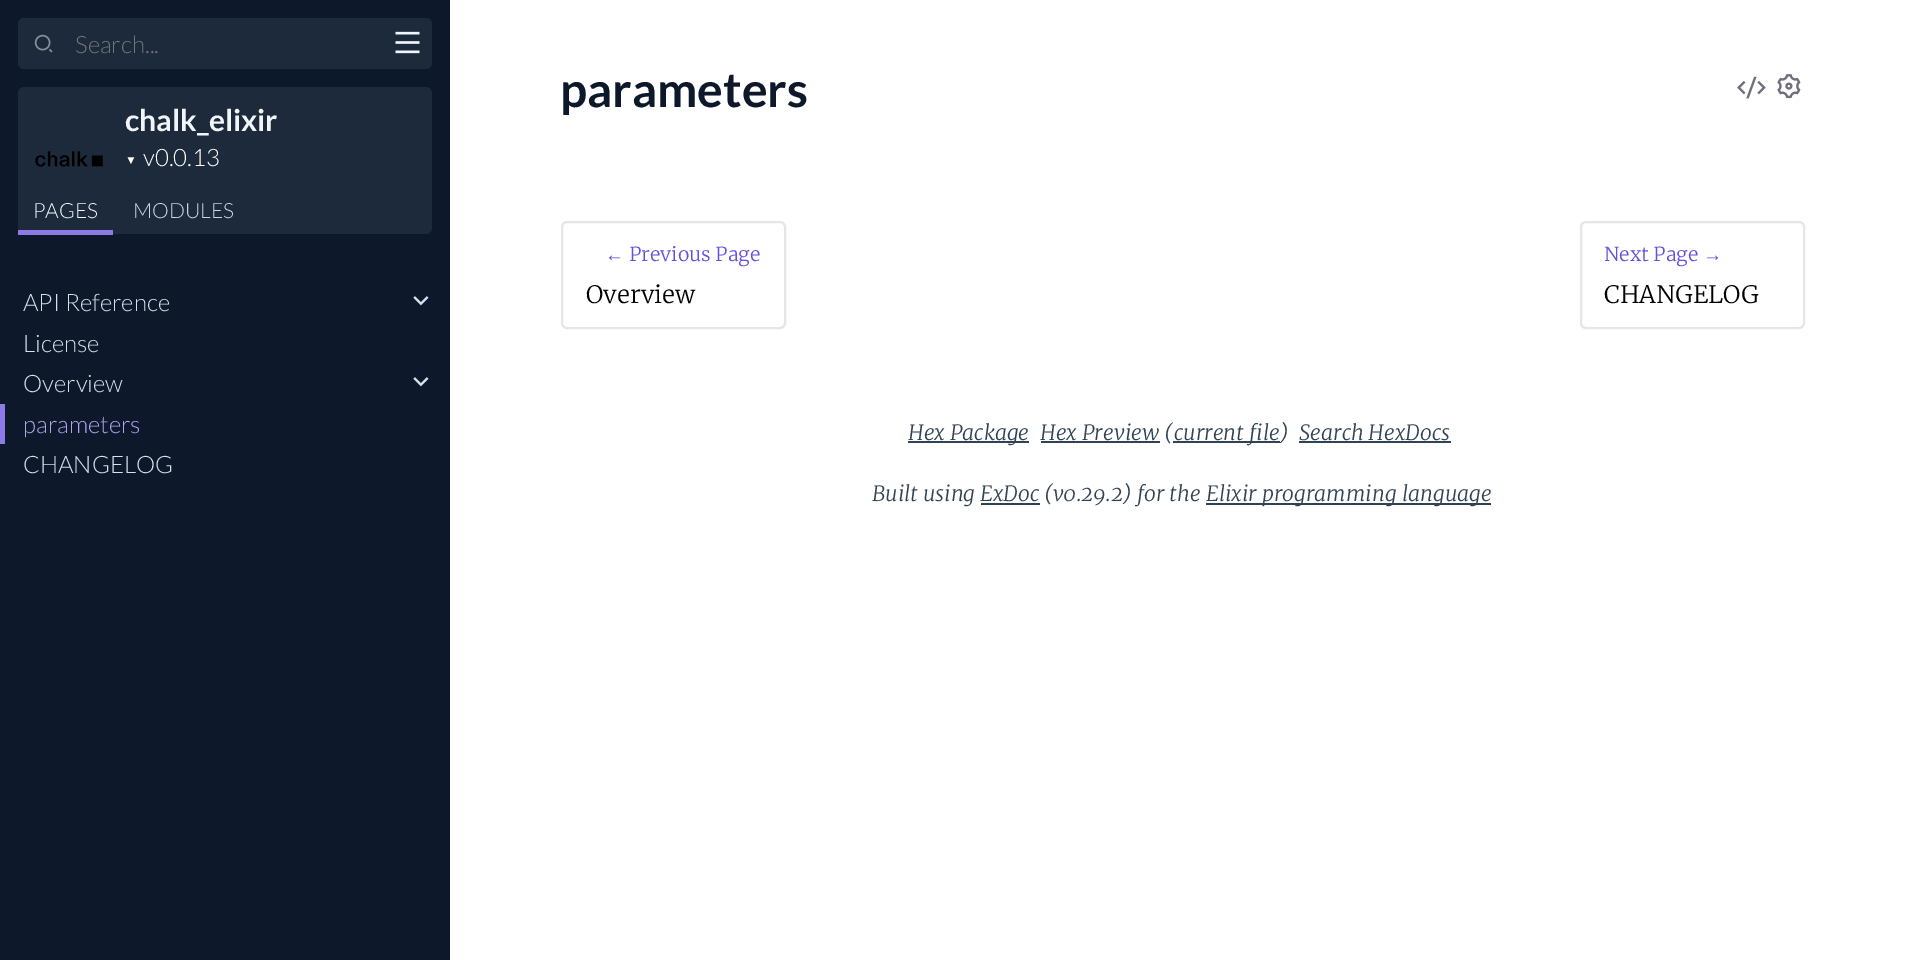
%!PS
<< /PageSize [1913 960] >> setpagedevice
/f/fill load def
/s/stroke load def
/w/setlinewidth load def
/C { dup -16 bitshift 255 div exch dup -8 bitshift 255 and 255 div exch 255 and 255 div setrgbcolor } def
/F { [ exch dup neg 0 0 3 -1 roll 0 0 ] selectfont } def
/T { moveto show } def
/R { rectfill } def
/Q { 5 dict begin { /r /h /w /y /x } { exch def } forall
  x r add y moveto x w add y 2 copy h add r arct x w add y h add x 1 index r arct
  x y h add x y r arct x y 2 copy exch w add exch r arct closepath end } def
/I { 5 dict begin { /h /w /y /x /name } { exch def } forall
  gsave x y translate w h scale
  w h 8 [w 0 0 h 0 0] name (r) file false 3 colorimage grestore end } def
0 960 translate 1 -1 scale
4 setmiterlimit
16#FFFFFF C
0 0 1913 960 R
16#0D192B C
0 0 450 960 R
16#1C2A3B C
18 18 414 51 6 Q f
(1.rgb) 34 34 19 19 I
/Lato-Light 24 F
16#757575 C
(Search...) 75 53 T
16#1C2A3B C
18 87 414 147 6 Q f
(2.rgb) 35 151 68 16 I
/Lato-Bold 30 F
16#F0F5F9 C
(chalk_elixir) 125 131 T
/LiberationSans-Regular 12 F
16#FFFFFF C
(▼) 125 164 T
/Lato-Light 24 F
(v0.0.13) 143 166 T
16#8C7AE6 C
18 230 95 5 R
/Lato-Light 21 F
16#F0F5F9 C
(PAGES) 33 218 T
16#CCD6E1 C
(MODULES) 133 218 T
/Lato-Light 24 F
16#D8E0E9 C
(API Reference) 23 311 T
(3.rgb) 413 296 16 10 I
(License) 23 352 T
(Overview) 23 392 T
(3.rgb) 413 377 16 10 I
16#8C7AE6 C
0 404 5 40 R
16#B1A5EE C
(parameters) 23 433 T
16#D8E0E9 C
(CHANGELOG) 23 473 T
(4.rgb) 395 31 25 23 I
/Lato-Bold 48 F
16#0D192B C
(parameters) 560 107 T
(5.rgb) 1737 76 29 23 I
(6.rgb) 1777 74 24 25 I
16#E6E6E6 C
2 w
562 222 223 106 5 Q s
/LiberationSerif-Regular 19.25 F
16#674FDE C
(←) 605 261 T
/Merriweather-Light 19.25 F
(Previous Page) 629 261 T
/Merriweather-Light 24 F
16#000000 C
(Overview) 586 303 T
16#E6E6E6 C
1581 222 223 106 5 Q s
/Merriweather-Light 19.25 F
16#674FDE C
(Next Page) 1604 261 T
/LiberationSerif-Regular 19.25 F
(→) 1703 261 T
/Merriweather-Light 24 F
16#000000 C
(CHANGELOG) 1604 303 T
16#304254 C
908 441 121 2 R
/Merriweather-LightItalic 21 F
(Hex Package) 908 440 T
1041 441 119 2 R
(Hex Preview \() 1040 440 T
1173 441 107 2 R
(current file\)) 1174 440 T
(Search HexDocs) 1299 440 T
1299 441 152 2 R
(Built using ExDoc \(v0.29.2\) for the) 872 501 T
1206 503 285 2 R
(Elixir programming language) 1206 501 T
981 503 59 2 R
showpage
